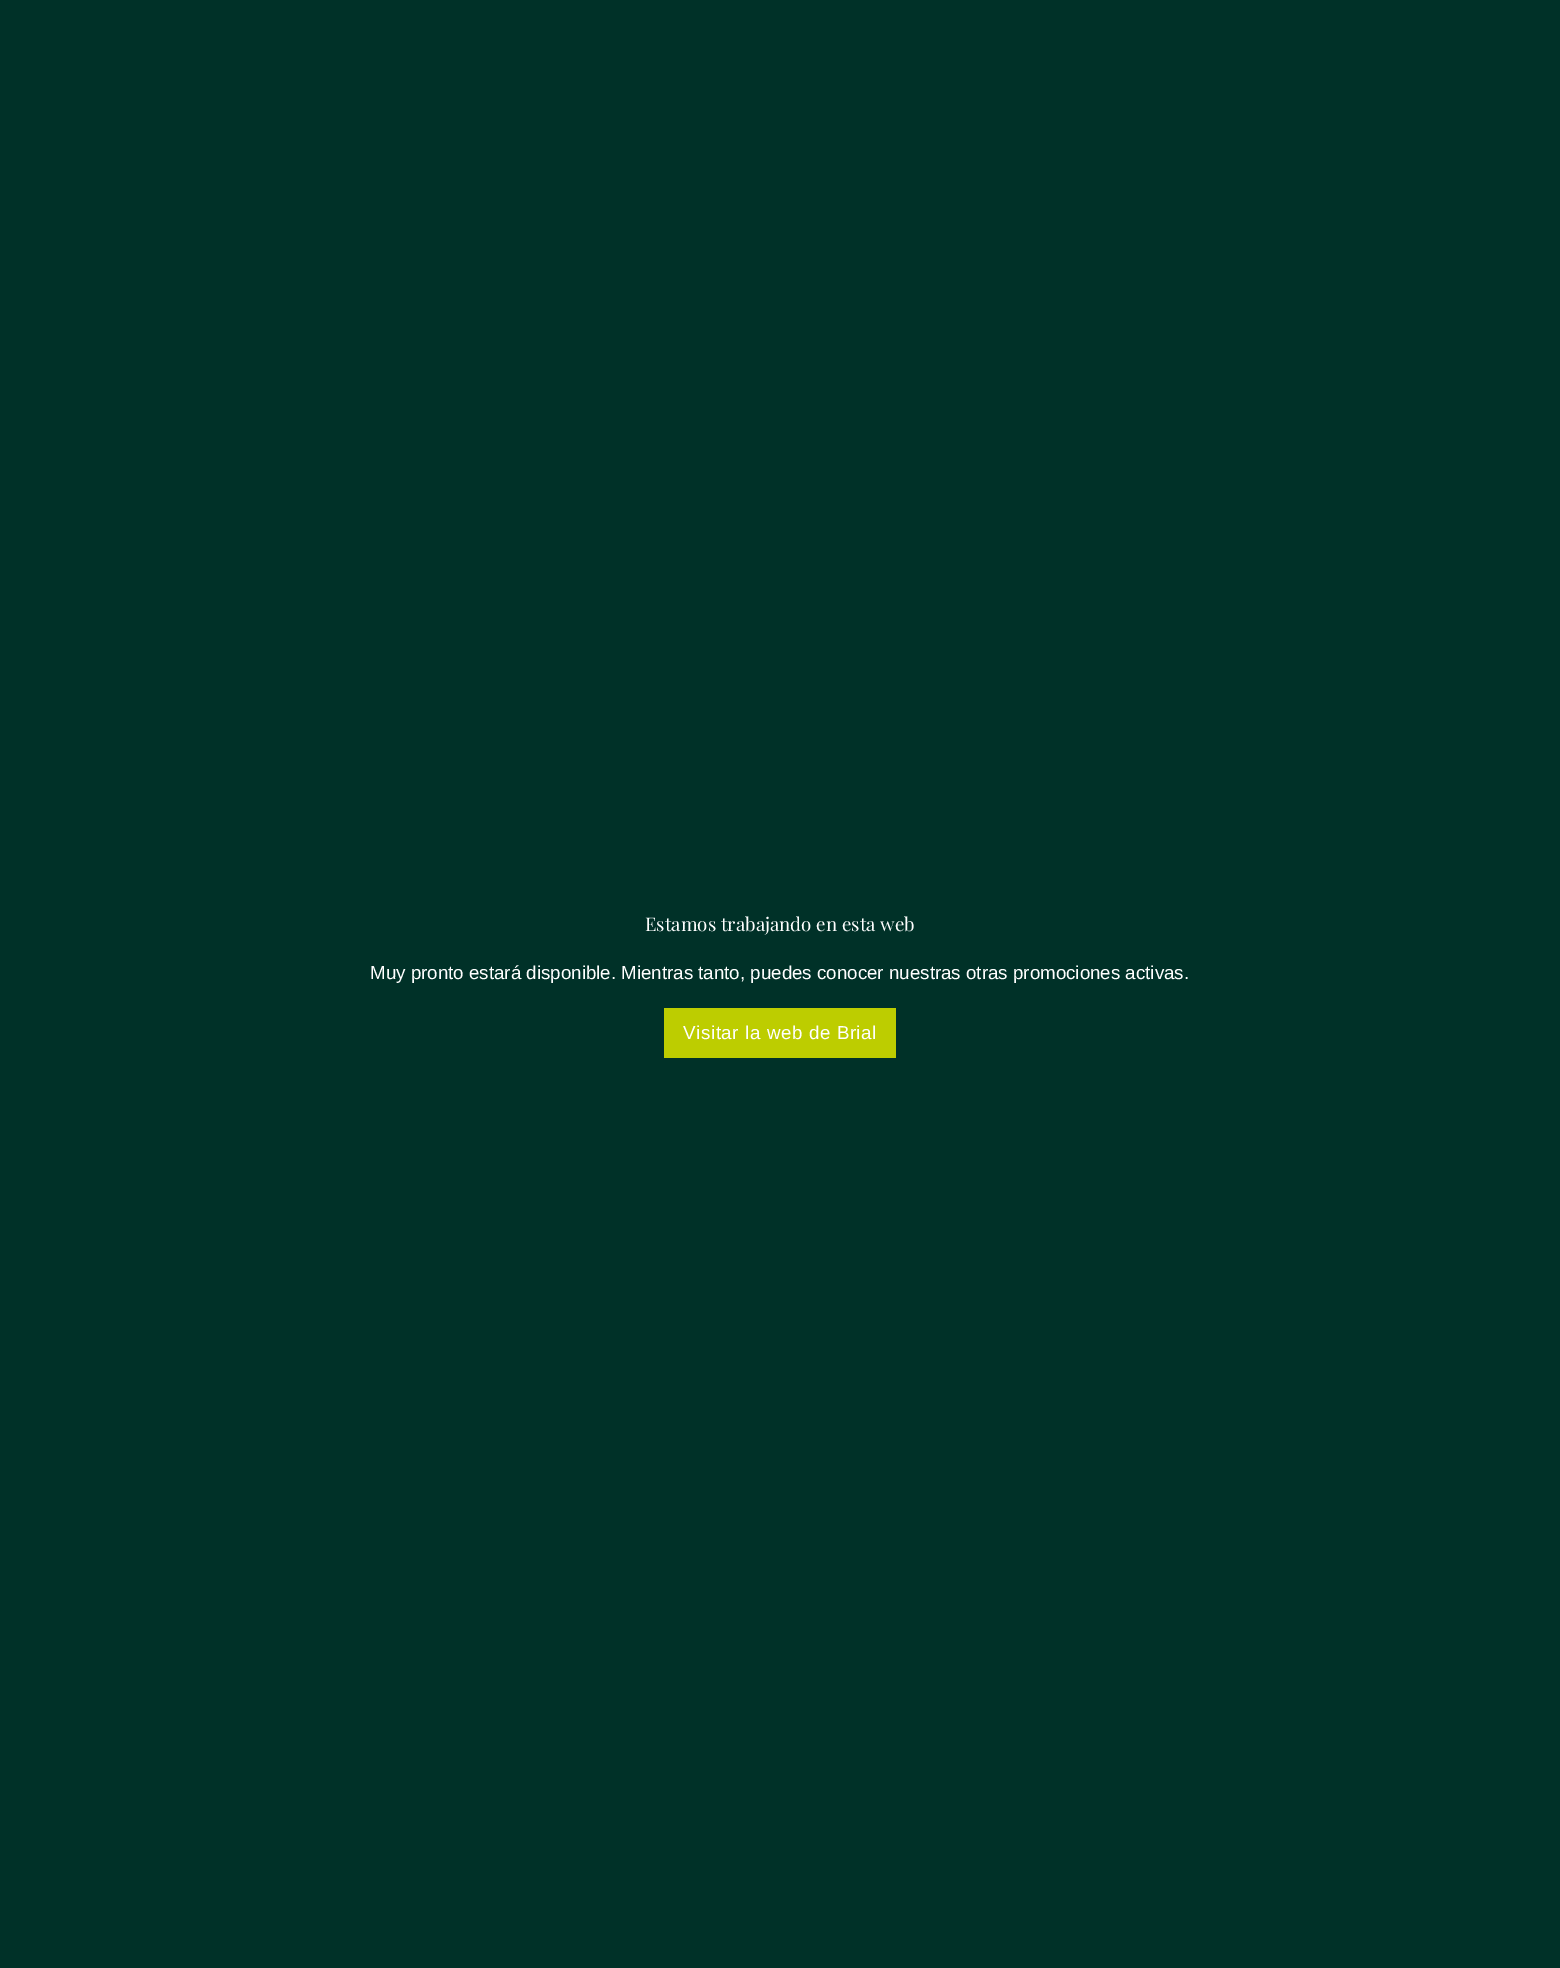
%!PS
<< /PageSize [1560 1968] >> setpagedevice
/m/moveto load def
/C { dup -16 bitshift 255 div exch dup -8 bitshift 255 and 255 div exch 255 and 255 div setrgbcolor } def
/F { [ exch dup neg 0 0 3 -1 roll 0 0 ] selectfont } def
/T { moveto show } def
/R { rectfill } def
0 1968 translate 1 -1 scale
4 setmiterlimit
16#003128 C
0 0 1560 1968 R
/PlayfairDisplay-Regular 18.75 F
16#FFFFFF C
(Estamos trabajando en esta web) 645 931 T
/Arimo-Regular 18.75 F
(Muy pronto estará disponible. Mientras tanto, puedes conocer nuestras otras promociones activas.) 370 979 T
16#BDCD00 C
664 1008 232 50 R
16#FFFFFF C
683 1039 m .6 0 (Visitar la web de Brial) ashow
showpage
